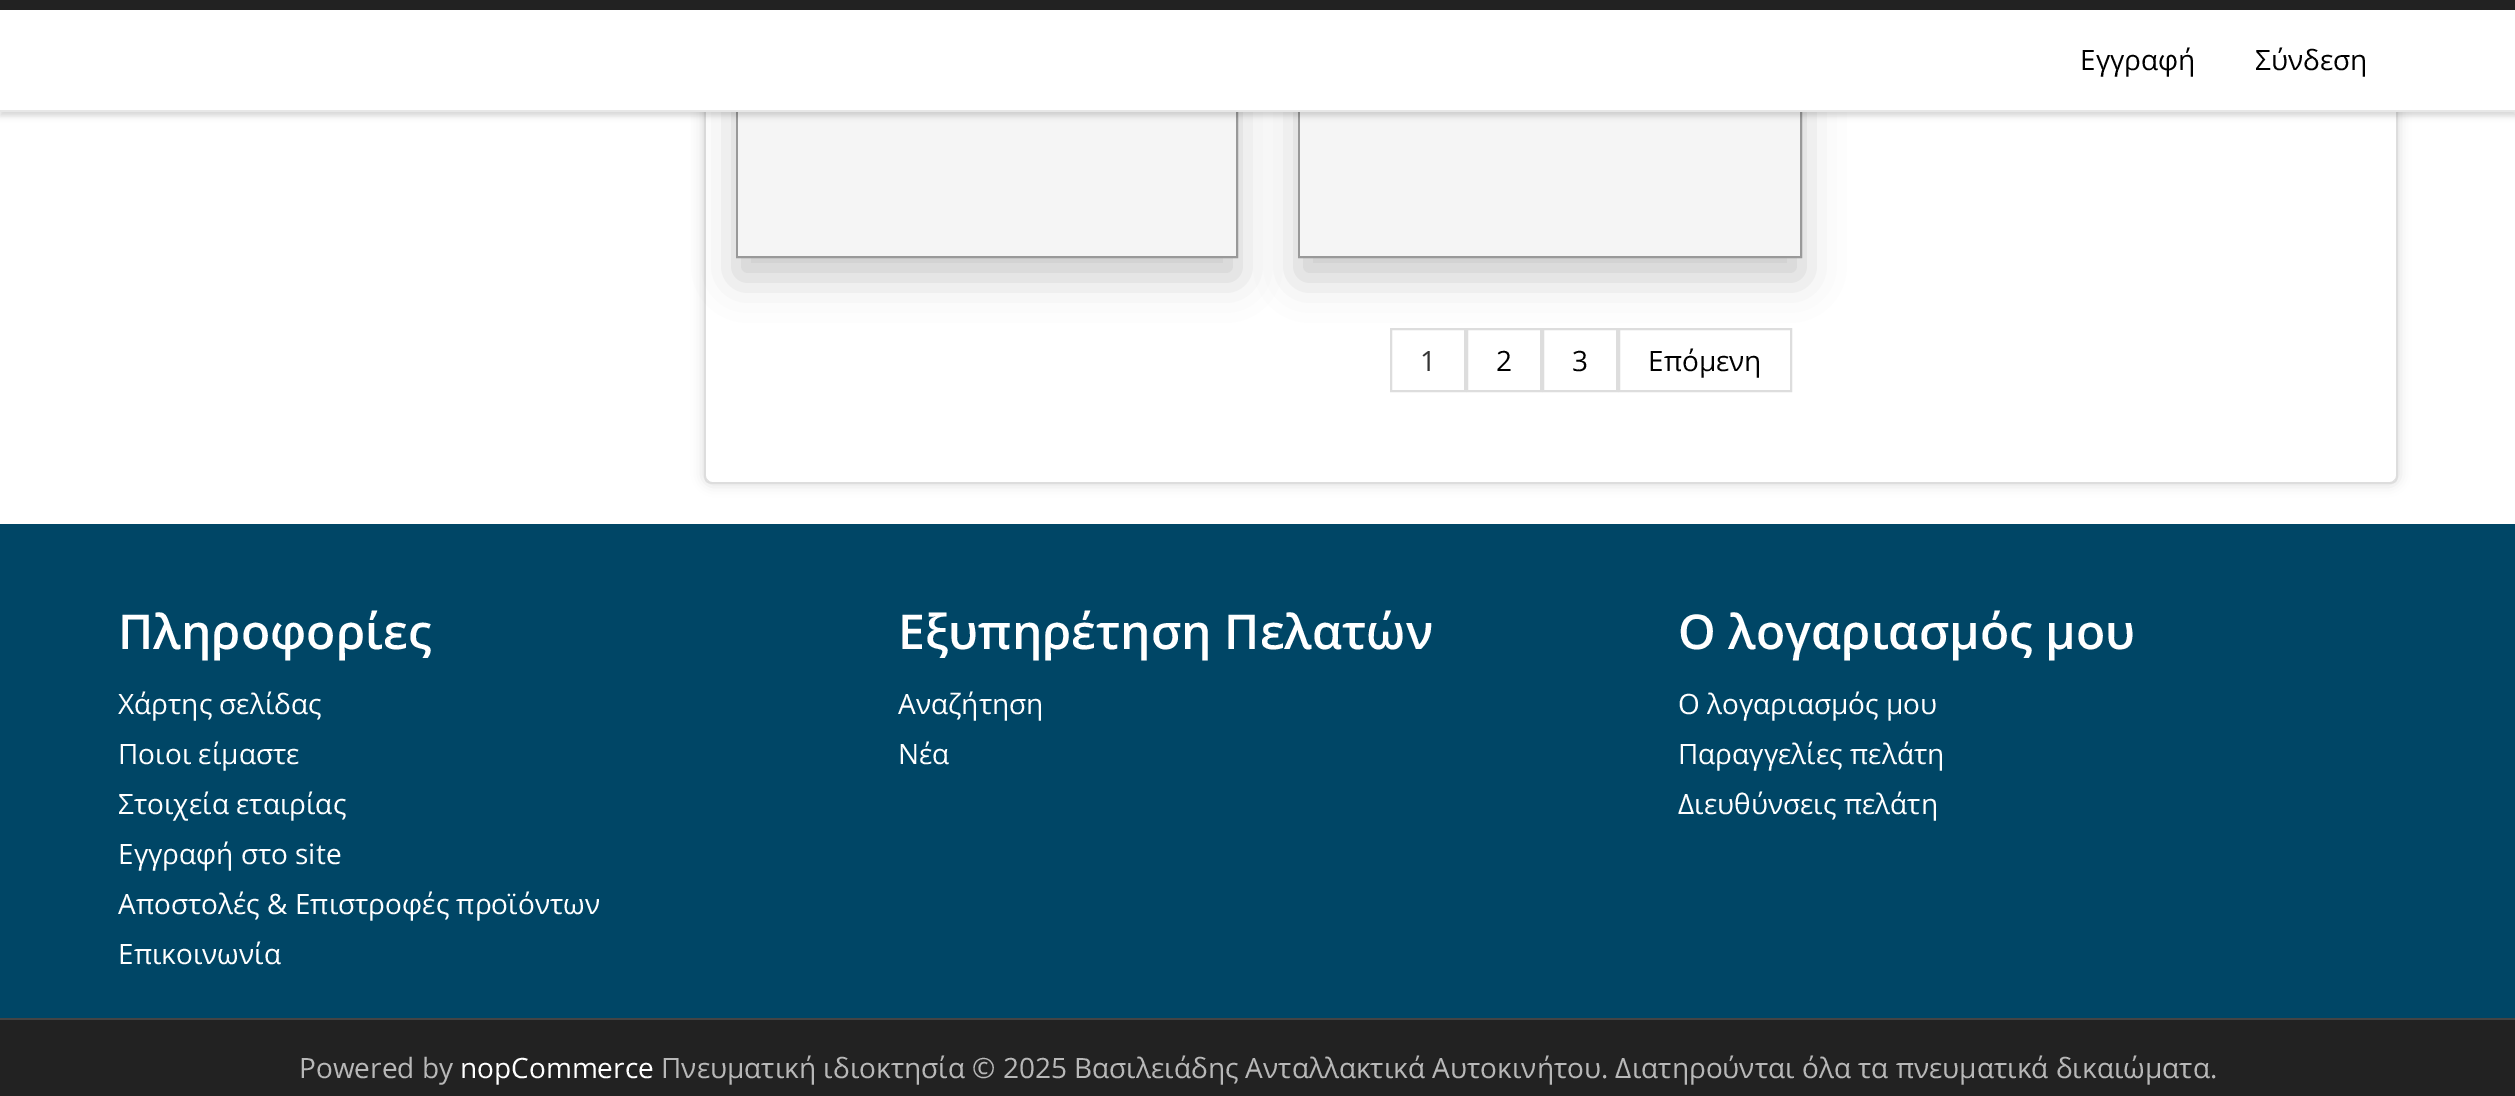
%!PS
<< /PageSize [2515 1096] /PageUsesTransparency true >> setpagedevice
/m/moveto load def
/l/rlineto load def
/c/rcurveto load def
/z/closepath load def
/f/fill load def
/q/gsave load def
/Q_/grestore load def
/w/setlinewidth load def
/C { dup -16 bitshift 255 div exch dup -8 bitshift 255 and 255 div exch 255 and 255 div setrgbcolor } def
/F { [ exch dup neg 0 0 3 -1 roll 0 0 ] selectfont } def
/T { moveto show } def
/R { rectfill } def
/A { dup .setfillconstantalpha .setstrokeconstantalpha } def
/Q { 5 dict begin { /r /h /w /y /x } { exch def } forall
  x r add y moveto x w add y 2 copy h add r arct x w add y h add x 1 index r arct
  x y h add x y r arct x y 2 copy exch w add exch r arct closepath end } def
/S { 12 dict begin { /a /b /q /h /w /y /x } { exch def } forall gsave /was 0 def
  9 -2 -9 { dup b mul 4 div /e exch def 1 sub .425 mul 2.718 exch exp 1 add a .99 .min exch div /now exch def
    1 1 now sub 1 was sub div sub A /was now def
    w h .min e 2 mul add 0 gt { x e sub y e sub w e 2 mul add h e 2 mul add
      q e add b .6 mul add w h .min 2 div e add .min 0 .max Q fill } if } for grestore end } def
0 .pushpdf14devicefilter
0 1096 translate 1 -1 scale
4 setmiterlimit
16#FFFFFF C
0 0 2515 1096 R
q
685 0 m 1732 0 l 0 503 l -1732 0 l z 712 -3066 m 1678 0 l 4.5 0 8 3.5 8 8 c 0 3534 l 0 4.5 -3.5 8 -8 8 c -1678 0 l -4.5 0 -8 -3.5 -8 -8 c 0 -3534 l 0 -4.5 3.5 -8 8 -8 c z eoclip newpath
16#000000 C
704 -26 1694 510 8 6 .15 S
Q_
16#DDDDDD C
2398 476 m 0 -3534 l -1 -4 l -1 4 l 0 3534 l 0 2 -1 3 -2 4 c 2 2 l 1 -2 2 -4 2 -6 c z f
712 484 m 1678 0 l 2 0 4 -1 6 -2 c -2 -2 l -1 1 -2 2 -4 2 c -1678 0 l -2 0 -3 -1 -4 -2 c -2 2 l 2 1 4 2 6 2 c z f
704 -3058 m 0 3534 l 0 2 1 4 2 6 c 2 -2 l -1 -1 -2 -2 -2 -4 c 0 -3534 l -1 -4 l z f
16#000000 C
736 -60 502 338 0 20 .2 S
16#999999 C
2 w
737 -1 500 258 rectstroke
16#F5F5F5 C
738 112 498 144 R
16#DDDDDD C
1391 329 74 62 rectstroke
1467 329 74 62 rectstroke
1543 329 74 62 rectstroke
1619 329 172 62 rectstroke
16#000000 C
1298 -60 504 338 0 20 .2 S
16#999999 C
1299 -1 502 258 rectstroke
16#F5F5F5 C
1300 112 500 144 R
16#000000 C
0 4 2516 112 0 3 .16 S
16#FFFFFF C
0 10 2515 100 R
16#222222 C
0 0 2515 10 R
16#E7E7E7 C
0 110 2515 2 R
/OpenSans-Regular 28 F
16#000000 C
(Εγγραφή) 2080 70 T
(Σύνδεση) 2255 70 T
16#333333 C
(1) 1420 371 T
16#000000 C
(2) 1496 371 T
(3) 1572 371 T
(Επόμενη) 1648 371 T
16#004666 C
0 524 2515 494 R
/OpenSans-SemiBold 48 F
16#FFFFFF C
(Πληροφορίες) 118 649 T
/OpenSans-Regular 28 F
(Χάρτης σελίδας) 118 714 T
(Ποιοι είμαστε) 118 764 T
(Στοιχεία εταιρίας) 118 814 T
(Εγγραφή στο site) 118 864 T
(Αποστολές & Επιστροφές προϊόντων) 118 914 T
(Επικοινωνία) 118 964 T
/OpenSans-SemiBold 48 F
(Εξυπηρέτηση Πελατών) 898 649 T
/OpenSans-Regular 28 F
(Αναζήτηση) 898 714 T
(Νέα) 898 764 T
/OpenSans-SemiBold 48 F
(Ο λογαριασμός μου) 1678 649 T
/OpenSans-Regular 28 F
(Ο λογαριασμός μου) 1678 714 T
(Παραγγελίες πελάτη) 1678 764 T
(Διευθύνσεις πελάτη) 1678 814 T
16#222222 C
0 1020 2515 76 R
16#444444 C
0 1018 2515 2 R
16#B8B8B8 C
(Powered by) 299 1078 T
16#FFFFFF C
(nopCommerce) 460 1078 T
16#B8B8B8 C
(Πνευματική ιδιοκτησία © 2025 Βασιλειάδης Ανταλλακτικά Αυτοκινήτου. Διατηρούνται όλα τα πνευματικά δικαιώματα.) 661 1078 T
.poppdf14devicefilter showpage
